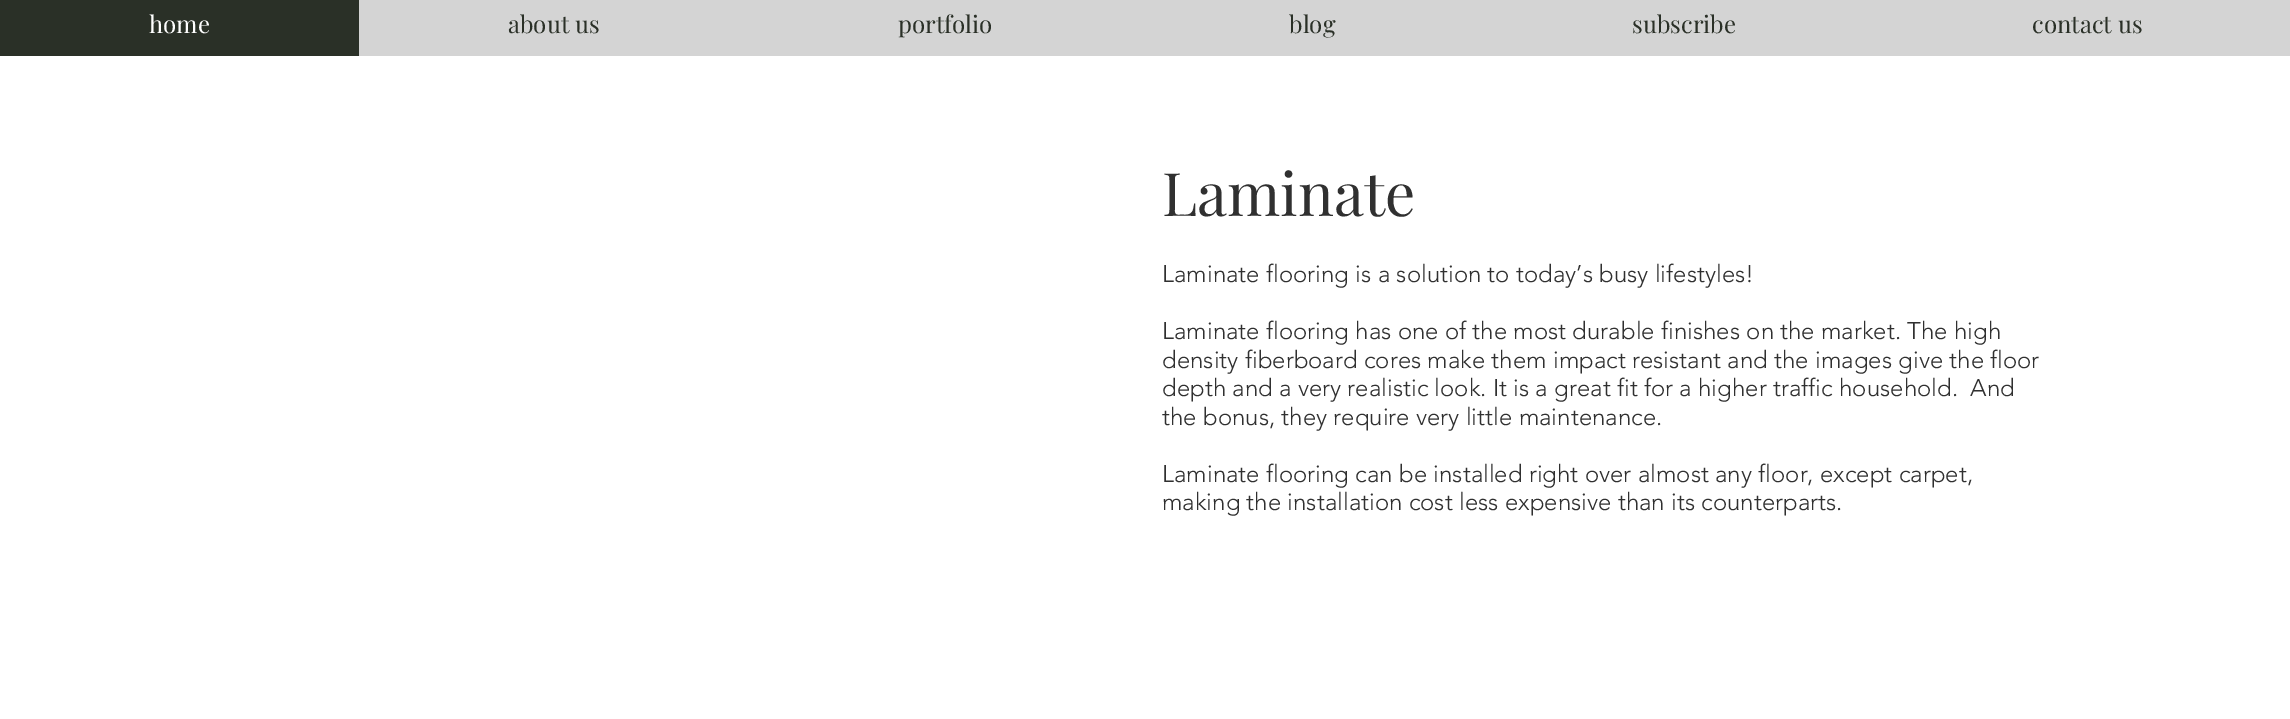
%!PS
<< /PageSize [2290 719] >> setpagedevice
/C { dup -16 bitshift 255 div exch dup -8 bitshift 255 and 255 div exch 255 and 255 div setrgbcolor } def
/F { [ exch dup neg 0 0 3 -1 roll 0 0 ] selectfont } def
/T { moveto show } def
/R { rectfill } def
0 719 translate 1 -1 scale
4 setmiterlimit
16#FFFFFF C
0 0 2290 719 R
16#2A3027 C
0 0 359 56 R
/PlayfairDisplay-Regular 24 F
16#FFFFFF C
(home) 149 33 T
16#D4D4D4 C
359 0 1931 56 R
16#2A3027 C
(about us) 508 33 T
(portfolio) 898 33 T
(blog) 1289 33 T
(subscribe) 1632 33 T
(contact us) 2032 33 T
/PlayfairDisplay-Regular 60 F
16#303030 C
(Laminate) 1162 216 T
/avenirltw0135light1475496-Light 24 F
(Laminate flooring is a solution to today’s busy lifestyles!) 1162 282 T
(Laminate flooring has one of the most durable finishes on the market. The high) 1162 339 T
(density fiberboard cores make them impact resistant and the images give the floor) 1162 368 T
(depth and a very realistic look. It is a great fit for a higher traffic household.  And) 1162 396 T
(the bonus, they require very little maintenance.) 1162 425 T
(Laminate flooring can be installed right over almost any floor, except carpet,) 1162 482 T
(making the installation cost less expensive than its counterparts.) 1162 510 T
showpage
